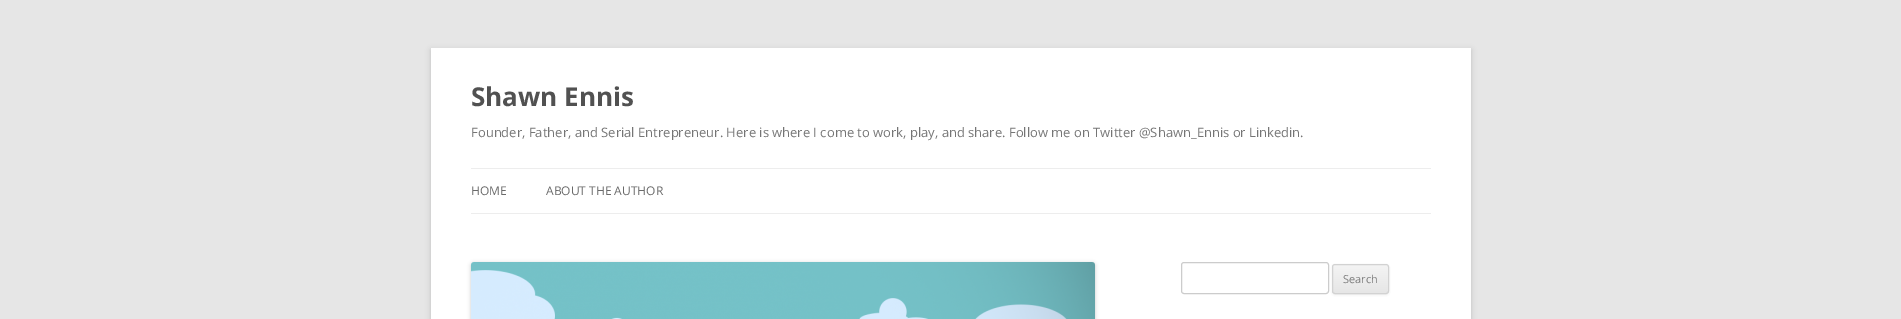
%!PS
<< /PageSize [1901 319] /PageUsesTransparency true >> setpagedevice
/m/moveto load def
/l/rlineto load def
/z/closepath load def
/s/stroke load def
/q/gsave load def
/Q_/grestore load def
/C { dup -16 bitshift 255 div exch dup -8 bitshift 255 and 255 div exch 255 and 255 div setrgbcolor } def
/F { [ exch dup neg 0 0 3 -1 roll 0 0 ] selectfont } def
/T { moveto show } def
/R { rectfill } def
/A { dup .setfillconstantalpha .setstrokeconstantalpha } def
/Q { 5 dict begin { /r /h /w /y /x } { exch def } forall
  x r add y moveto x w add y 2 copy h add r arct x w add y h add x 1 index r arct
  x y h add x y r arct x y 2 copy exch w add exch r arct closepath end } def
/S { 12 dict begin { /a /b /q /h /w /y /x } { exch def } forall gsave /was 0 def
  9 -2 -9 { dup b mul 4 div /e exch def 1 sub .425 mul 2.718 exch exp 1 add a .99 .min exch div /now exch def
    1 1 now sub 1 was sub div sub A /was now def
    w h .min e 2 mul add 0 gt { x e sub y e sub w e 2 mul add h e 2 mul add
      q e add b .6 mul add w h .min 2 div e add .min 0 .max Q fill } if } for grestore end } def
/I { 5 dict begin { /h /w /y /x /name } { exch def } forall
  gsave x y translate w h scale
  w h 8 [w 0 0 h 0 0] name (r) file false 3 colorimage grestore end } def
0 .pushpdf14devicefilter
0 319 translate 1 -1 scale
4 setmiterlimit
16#E6E6E6 C
0 0 1901 319 R
16#646464 C
431 50 1040 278 0 3 .3 S
16#FFFFFF C
431 48 1040 271 R
/OpenSans-Bold 26 F
16#515151 C
(Shawn Ennis) 471 106 T
/OpenSans-Regular 13 F
16#757575 C
(Founder, Father, and Serial Entrepreneur. Here is where I come to work, play, and share. Follow me on Twitter @Shawn_Ennis or Linkedin.) 471 137 T
16#EDEDED C
471 168 960 1 R
471 213 960 1 R
/OpenSans-Regular 12 F
16#6A6A6A C
(HOME) 471 195 T
(ABOUT THE AUTHOR) 546 195 T
16#000000 C
471 263 624 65 3 2 .2 S
(1.rgb) 471 262 624 57 I
16#CCCCCC C
1181.5 262.5 147 31 2.5 Q s
16#404040 C
1332 265 57 30 3 1 .1 S
q
1332 264 57 30 3 Q clip newpath
q 1332 265 m 57 0 l 0 28 l -57 0 l z clip newpath
<< /ShadingType 2 /ColorSpace /DeviceRGB /Coords [1361 265 1361 293] /Extend [true true] /Function << /FunctionType 2 /Domain [0 1] /C0 [.957 .957 .957] /C1 [.902 .902 .902] /N 1 >> >> shfill Q_
Q_
16#D2D2D2 C
1332.5 264.5 56 29 2.5 Q s
/OpenSans-Regular 11 F
16#7C7C7C C
(Search) 1343 283 T
.poppdf14devicefilter showpage
